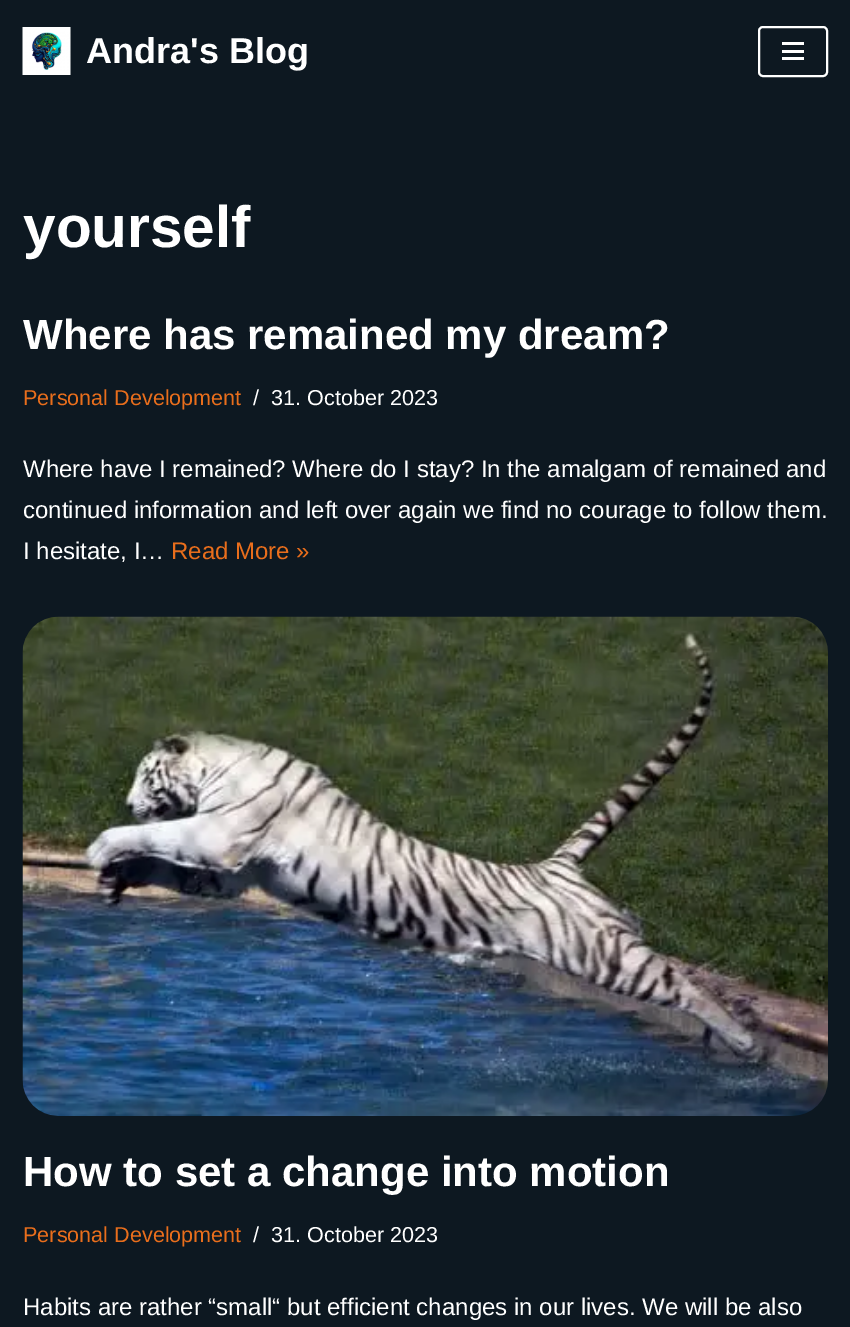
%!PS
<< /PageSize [850 1327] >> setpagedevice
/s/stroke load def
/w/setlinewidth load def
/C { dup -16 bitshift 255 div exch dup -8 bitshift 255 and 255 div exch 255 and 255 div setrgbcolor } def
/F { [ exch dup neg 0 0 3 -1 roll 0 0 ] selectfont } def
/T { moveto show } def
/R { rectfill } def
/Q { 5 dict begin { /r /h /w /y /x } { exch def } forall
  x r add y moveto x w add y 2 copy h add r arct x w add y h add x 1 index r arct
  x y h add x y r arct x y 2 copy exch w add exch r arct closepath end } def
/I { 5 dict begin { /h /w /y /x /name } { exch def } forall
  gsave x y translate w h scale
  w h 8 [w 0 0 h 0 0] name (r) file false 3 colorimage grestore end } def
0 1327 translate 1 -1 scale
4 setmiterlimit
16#0D1821 C
0 0 850 1327 R
(1.rgb) 22 27 49 48 I
/LiberationSans-Bold 36 F
16#FFFFFF C
(Andra's Blog) 86 63 T
2 w
759 27 68 49 4 Q s
782 42 22 3 R
782 50 22 3 R
782 57 22 3 R
/LiberationSans-Bold 58.5 F
(yourself) 23 247 T
/LiberationSans-Bold 42 F
(Where has remained my dream?) 23 349 T
/LiberationSans-Regular 21.6 F
16#E96E1C C
(Personal Development) 23 405 T
16#FFFFFF C
(/) 253 405 T
(31. October 2023) 271 405 T
/LiberationSans-Regular 24 F
(Where have I remained? Where do I stay? In the amalgam of remained and) 23 477 T
(continued information and left over again we find no courage to follow them.) 23 518 T
(I hesitate, I…) 23 559 T
16#E96E1C C
(Read More ») 171 559 T
(2.rgb) 22 616 806 500 I
/LiberationSans-Bold 42 F
16#FFFFFF C
(How to set a change into motion) 23 1186 T
/LiberationSans-Regular 21.6 F
16#E96E1C C
(Personal Development) 23 1242 T
16#FFFFFF C
(/) 253 1242 T
(31. October 2023) 271 1242 T
/LiberationSans-Regular 24 F
(Habits are rather “small“ but efficient changes in our lives. We will be also) 23 1315 T
showpage
